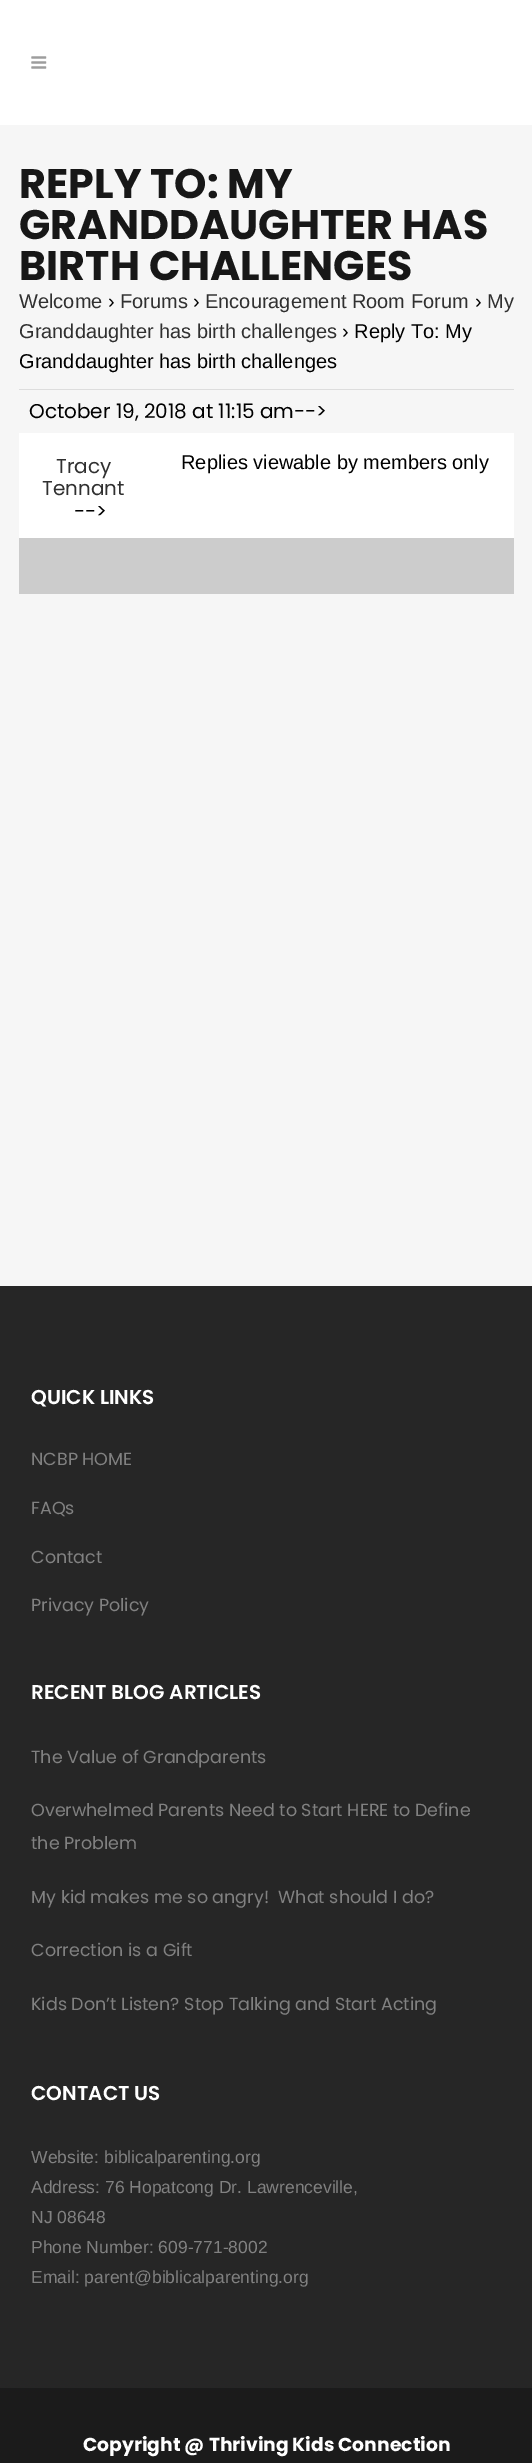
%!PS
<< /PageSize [532 2463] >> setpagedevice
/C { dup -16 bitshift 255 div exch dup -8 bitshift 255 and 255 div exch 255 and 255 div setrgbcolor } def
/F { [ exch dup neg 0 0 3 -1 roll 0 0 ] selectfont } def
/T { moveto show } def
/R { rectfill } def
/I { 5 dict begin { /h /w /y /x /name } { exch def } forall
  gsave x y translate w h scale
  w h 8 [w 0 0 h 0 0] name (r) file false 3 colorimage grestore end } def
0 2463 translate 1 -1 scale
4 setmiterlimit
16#F6F6F6 C
0 0 532 2463 R
16#FFFFFF C
0 0 532 125 R
(1.rgb) 31 56 16 13 I
/Poppins-Bold 41.25 F
16#171717 C
(REPLY TO: MY) 19 198 T
(GRANDDAUGHTER HAS) 19 239 T
(BIRTH CHALLENGES) 19 280 T
/LiberationSans-Regular 20 F
16#303030 C
(Welcome) 19 308 T
16#000000 C
(›) 108 308 T
16#303030 C
(Forums) 120 308 T
16#000000 C
(›) 193 308 T
16#303030 C
(Encouragement Room Forum) 205 308 T
16#000000 C
(›) 475 308 T
16#303030 C
(My) 487 308 T
(Granddaughter has birth challenges) 19 338 T
16#000000 C
(› Reply To: My) 342 338 T
(Granddaughter has birth challenges) 19 368 T
16#DDDDDD C
19 389 495 1 R
/Poppins-Regular 20 F
16#000000 C
(October 19, 2018 at 11:15 am-->) 29 418 T
16#FFFFFF C
19 433 495 105 R
16#303030 C
(Tracy) 56 473 T
(Tennant) 42 495 T
16#000000 C
(-->) 74 518 T
/LiberationSans-Regular 20 F
(Replies viewable by members only) 181 469 T
16#CCCCCC C
19 538 495 56 R
16#262626 C
0 1286 532 1102 R
/Poppins-SemiBold 20 F
16#FFFFFF C
(QUICK LINKS) 31 1404 T
/Poppins-Regular 17.5 F
16#818181 C
(NCBP HOME) 31 1465 T
(FAQs) 31 1514 T
(Contact) 31 1563 T
(Privacy Policy) 31 1611 T
/Poppins-SemiBold 20 F
16#FFFFFF C
(RECENT BLOG ARTICLES) 31 1699 T
/Poppins-Regular 17.5 F
16#818181 C
(The Value of Grandparents) 31 1763 T
(Overwhelmed Parents Need to Start HERE to Define) 31 1816 T
(the Problem) 31 1849 T
(My kid makes me so angry!  What should I do?) 31 1903 T
(Correction is a Gift) 31 1956 T
(Kids Don’t Listen? Stop Talking and Start Acting) 31 2010 T
/Poppins-SemiBold 20 F
16#FFFFFF C
(CONTACT US) 31 2100 T
/LiberationSans-Regular 17.5 F
16#818181 C
(Website: biblicalparenting.org) 31 2163 T
(Address: 76 Hopatcong Dr. Lawrenceville,) 31 2193 T
(NJ 08648) 31 2223 T
(Phone Number: 609-771-8002) 31 2253 T
(Email: parent@biblicalparenting.org) 31 2283 T
16#1B1B1B C
0 2388 532 75 R
/Poppins-Bold 18.75 F
16#FFFFFF C
(Copyright @ Thriving Kids Connection) 83 2451 T
showpage
